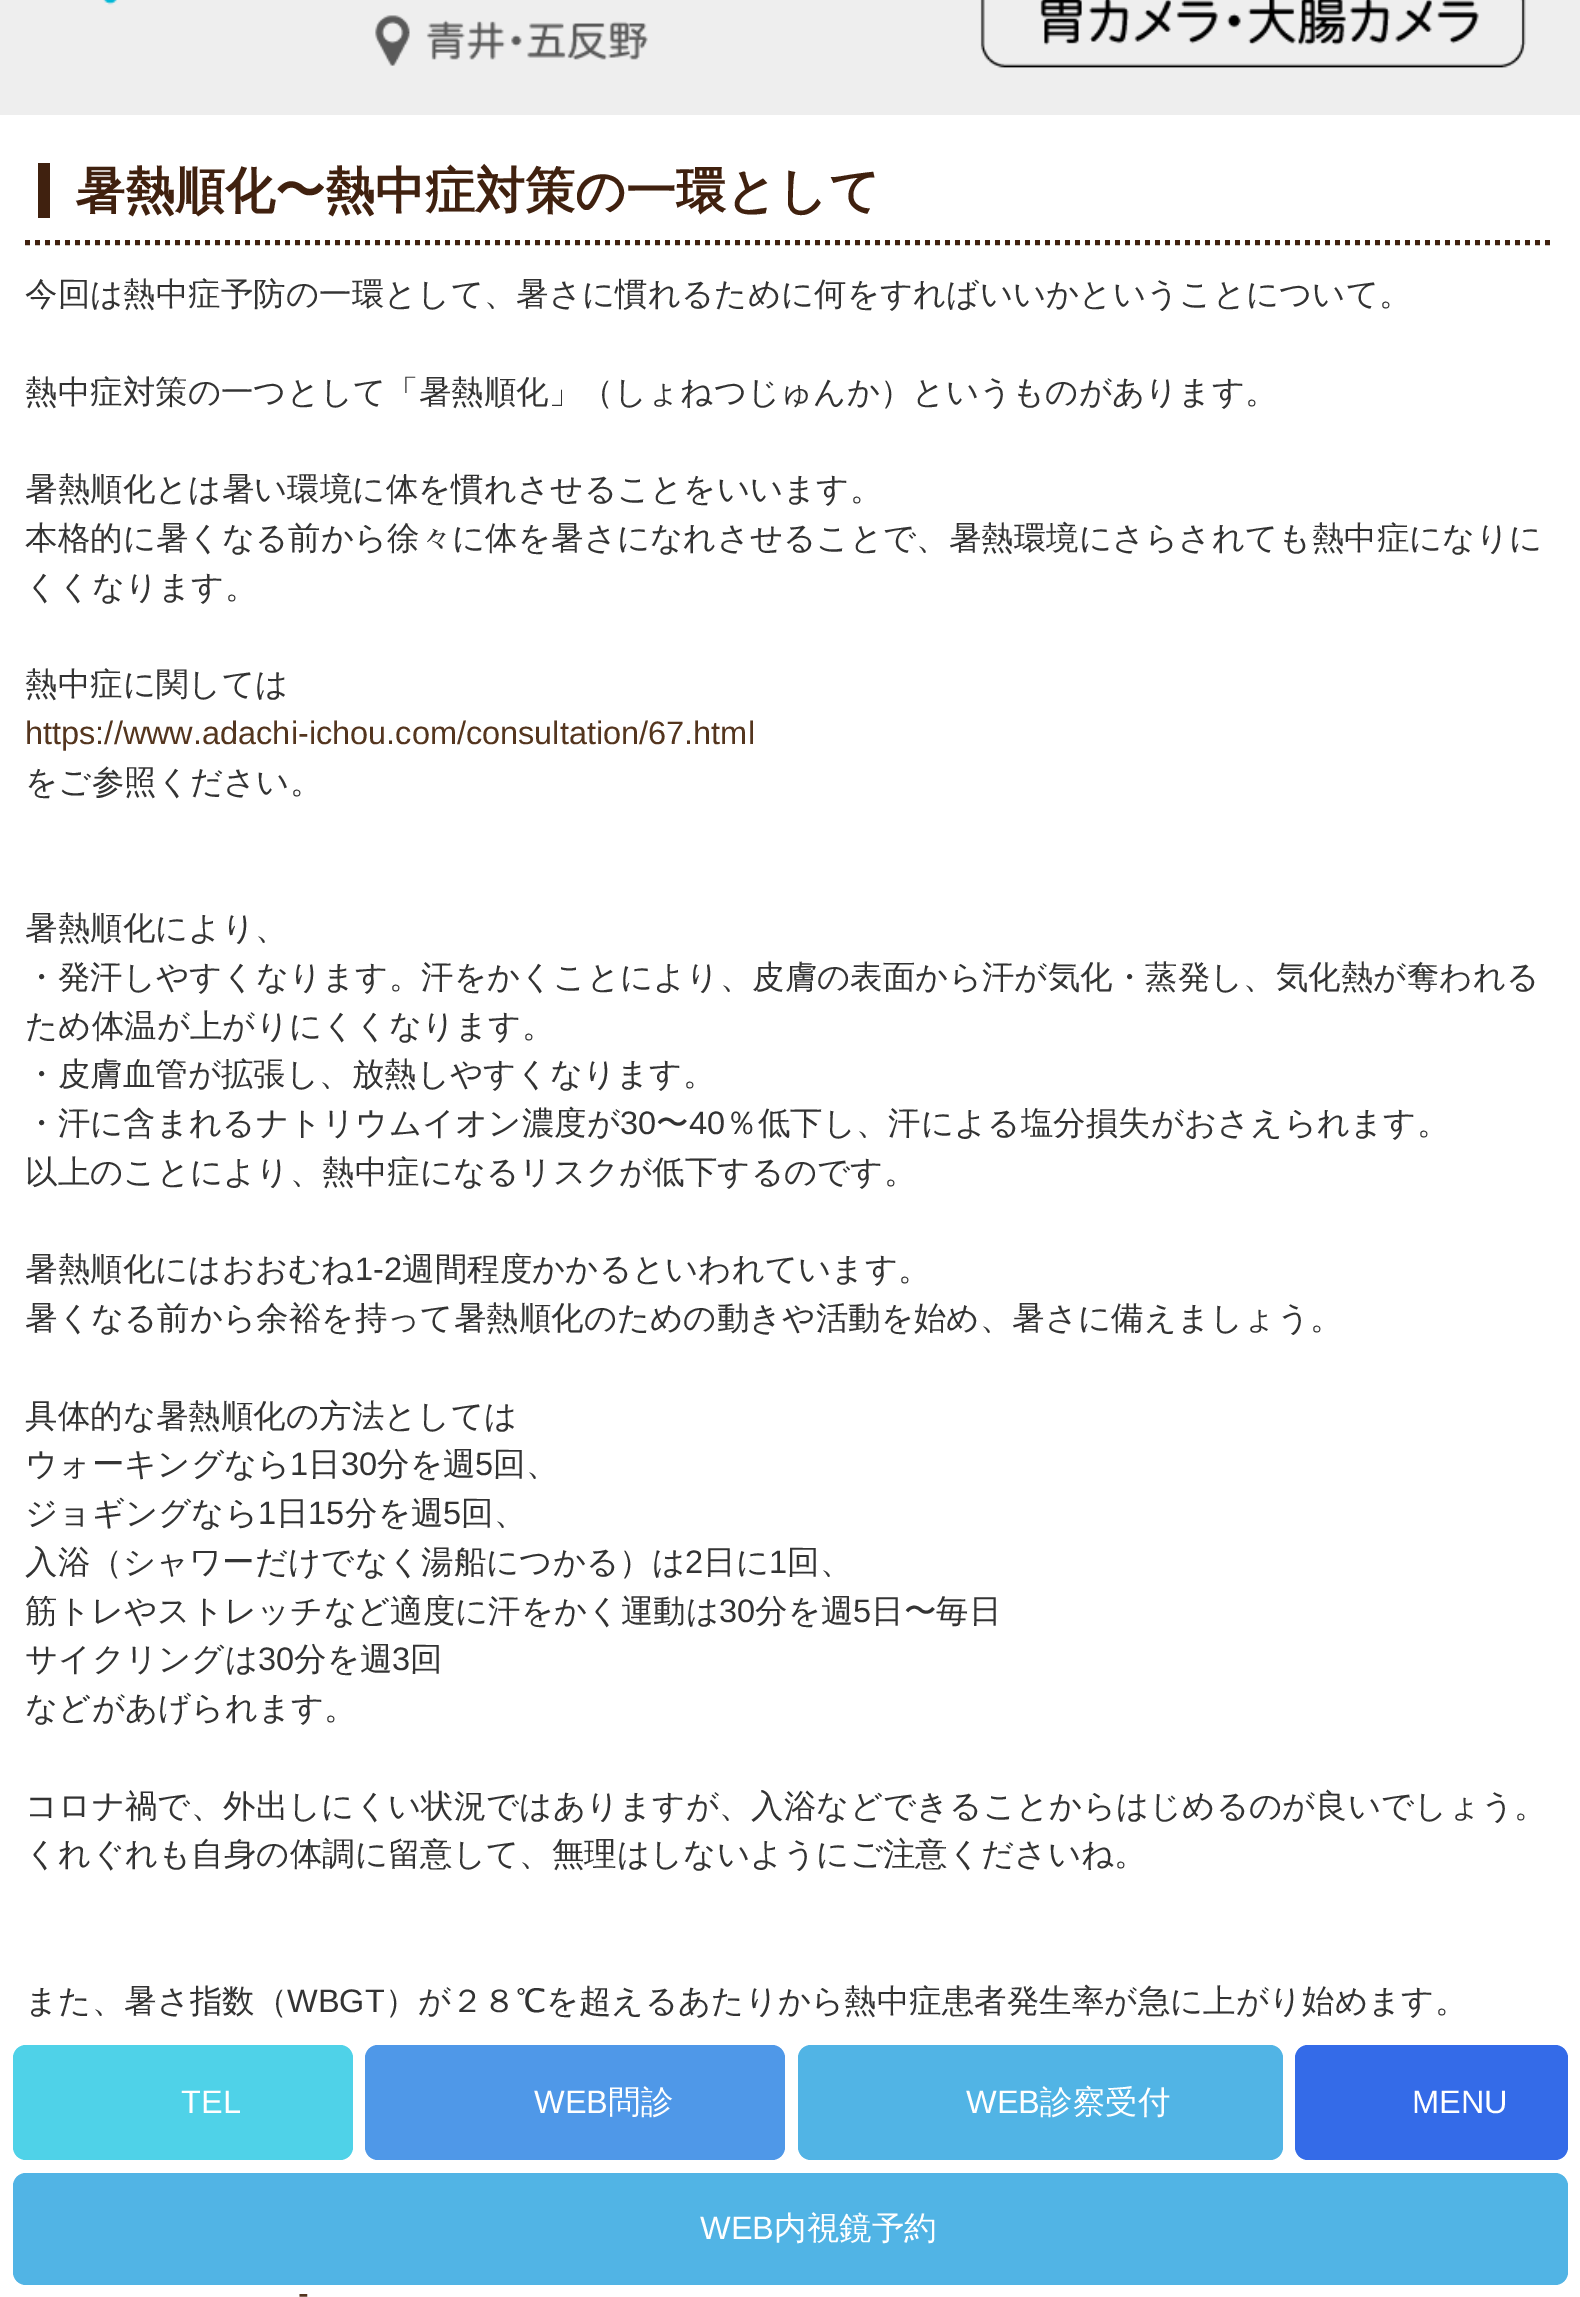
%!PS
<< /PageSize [1580 2297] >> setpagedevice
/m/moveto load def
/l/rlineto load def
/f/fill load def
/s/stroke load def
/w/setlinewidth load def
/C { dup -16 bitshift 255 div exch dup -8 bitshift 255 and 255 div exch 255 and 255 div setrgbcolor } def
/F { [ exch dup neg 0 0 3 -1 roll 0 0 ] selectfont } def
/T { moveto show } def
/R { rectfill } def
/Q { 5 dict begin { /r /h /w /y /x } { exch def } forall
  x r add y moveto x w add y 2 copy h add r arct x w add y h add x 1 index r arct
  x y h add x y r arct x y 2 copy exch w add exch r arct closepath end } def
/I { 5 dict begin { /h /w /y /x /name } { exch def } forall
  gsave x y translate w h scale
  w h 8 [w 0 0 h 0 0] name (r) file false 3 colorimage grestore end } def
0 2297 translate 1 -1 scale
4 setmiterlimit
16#FFFFFF C
0 0 1580 2297 R
16#40210F C
5 w
[5 5] 0 setdash
25 242.5 m 1530 0 l s
38 163 12 55 R
/WenQuanYiZenHei-Bold 50 F
(暑熱順化〜熱中症対策の一環として) 75 208 T
/WenQuanYiZenHei-Medium 32.5 F
16#333333 C
(今回は熱中症予防の一環として、暑さに慣れるために何をすればいいかということについて。) 25 305 T
(熱中症対策の一つとして「暑熱順化」（しょねつじゅんか）というものがあります。) 25 403 T
(暑熱順化とは暑い環境に体を慣れさせることをいいます。) 25 500 T
(本格的に暑くなる前から徐々に体を暑さになれさせることで、暑熱環境にさらされても熱中症になりに) 25 549 T
(くくなります。) 25 598 T
(熱中症に関しては) 25 695 T
/LiberationSans-Regular 32.5 F
16#54351E C
(https://www.adachi-ichou.com/consultation/67.html) 25 744 T
/WenQuanYiZenHei-Medium 32.5 F
16#333333 C
(をご参照ください。) 25 793 T
(暑熱順化により、) 25 939 T
(・発汗しやすくなります。汗をかくことにより、皮膚の表面から汗が気化・蒸発し、気化熱が奪われる) 25 988 T
(ため体温が上がりにくくなります。) 25 1037 T
(・皮膚血管が拡張し、放熱しやすくなります。) 25 1085 T
(・汗に含まれるナトリウムイオン濃度が) 25 1134 T
/LiberationSans-Regular 32.5 F
(30) 620 1134 T
/WenQuanYiZenHei-Medium 32.5 F
(〜) 656 1134 T
/LiberationSans-Regular 32.5 F
(40) 689 1134 T
/WenQuanYiZenHei-Medium 32.5 F
(％低下し、汗による塩分損失がおさえられます。) 725 1134 T
(以上のことにより、熱中症になるリスクが低下するのです。) 25 1183 T
(暑熱順化にはおおむね) 25 1280 T
/LiberationSans-Regular 32.5 F
(1-2) 355 1280 T
/WenQuanYiZenHei-Medium 32.5 F
(週間程度かかるといわれています。) 402 1280 T
(暑くなる前から余裕を持って暑熱順化のための動きや活動を始め、暑さに備えましょう。) 25 1329 T
(具体的な暑熱順化の方法としては) 25 1427 T
(ウォーキングなら) 25 1475 T
/LiberationSans-Regular 32.5 F
(1) 290 1475 T
/WenQuanYiZenHei-Medium 32.5 F
(日) 308 1475 T
/LiberationSans-Regular 32.5 F
(30) 341 1475 T
/WenQuanYiZenHei-Medium 32.5 F
(分を週) 377 1475 T
/LiberationSans-Regular 32.5 F
(5) 475 1475 T
/WenQuanYiZenHei-Medium 32.5 F
(回、) 493 1475 T
(ジョギングなら) 25 1524 T
/LiberationSans-Regular 32.5 F
(1) 258 1524 T
/WenQuanYiZenHei-Medium 32.5 F
(日) 276 1524 T
/LiberationSans-Regular 32.5 F
(15) 308 1524 T
/WenQuanYiZenHei-Medium 32.5 F
(分を週) 345 1524 T
/LiberationSans-Regular 32.5 F
(5) 443 1524 T
/WenQuanYiZenHei-Medium 32.5 F
(回、) 461 1524 T
(入浴（シャワーだけでなく湯船につかる）は) 25 1573 T
/LiberationSans-Regular 32.5 F
(2) 685 1573 T
/WenQuanYiZenHei-Medium 32.5 F
(日に) 703 1573 T
/LiberationSans-Regular 32.5 F
(1) 769 1573 T
/WenQuanYiZenHei-Medium 32.5 F
(回、) 787 1573 T
(筋トレやストレッチなど適度に汗をかく運動は) 25 1622 T
/LiberationSans-Regular 32.5 F
(30) 719 1622 T
/WenQuanYiZenHei-Medium 32.5 F
(分を週) 755 1622 T
/LiberationSans-Regular 32.5 F
(5) 853 1622 T
/WenQuanYiZenHei-Medium 32.5 F
(日〜毎日) 871 1622 T
(サイクリングは) 25 1670 T
/LiberationSans-Regular 32.5 F
(30) 258 1670 T
/WenQuanYiZenHei-Medium 32.5 F
(分を週) 294 1670 T
/LiberationSans-Regular 32.5 F
(3) 392 1670 T
/WenQuanYiZenHei-Medium 32.5 F
(回) 410 1670 T
(などがあげられます。) 25 1719 T
(コロナ禍で、外出しにくい状況ではありますが、入浴などできることからはじめるのが良いでしょう。) 25 1817 T
(くれぐれも自身の体調に留意して、無理はしないようにご注意くださいね。) 25 1865 T
(また、暑さ指数（) 25 2012 T
/LiberationSans-Regular 32.5 F
(WBGT) 287 2012 T
/WenQuanYiZenHei-Medium 32.5 F
(）が２８℃を超えるあたりから熱中症患者発生率が急に上がり始めます。) 385 2012 T
/LiberationSans-Regular 32.5 F
16#54351E C
(-) 298 2304 T
16#EEEEEE C
0 0 1580 115 R
(1.rgb) 103 0 1423 68 I
16#4FD2E8 C
13 2045 340 115 13 Q f
16#FFFFFF C
(TEL) 181 2113 T
16#4F98E8 C
365 2045 420 115 13 Q f
16#FFFFFF C
(WEB) 534 2113 T
/WenQuanYiZenHei-Medium 32.5 F
(問診) 608 2113 T
16#51B4E5 C
798 2045 485 115 13 Q f
/LiberationSans-Regular 32.5 F
16#FFFFFF C
(WEB) 966 2113 T
/WenQuanYiZenHei-Medium 32.5 F
(診察受付) 1040 2113 T
16#346BE8 C
1295 2045 273 115 13 Q f
/LiberationSans-Regular 32.5 F
16#FFFFFF C
(MENU) 1412 2113 T
16#51B4E5 C
13 2173 1555 112 13 Q f
16#FFFFFF C
(WEB) 700 2239 T
/WenQuanYiZenHei-Medium 32.5 F
(内視鏡予約) 774 2239 T
showpage
